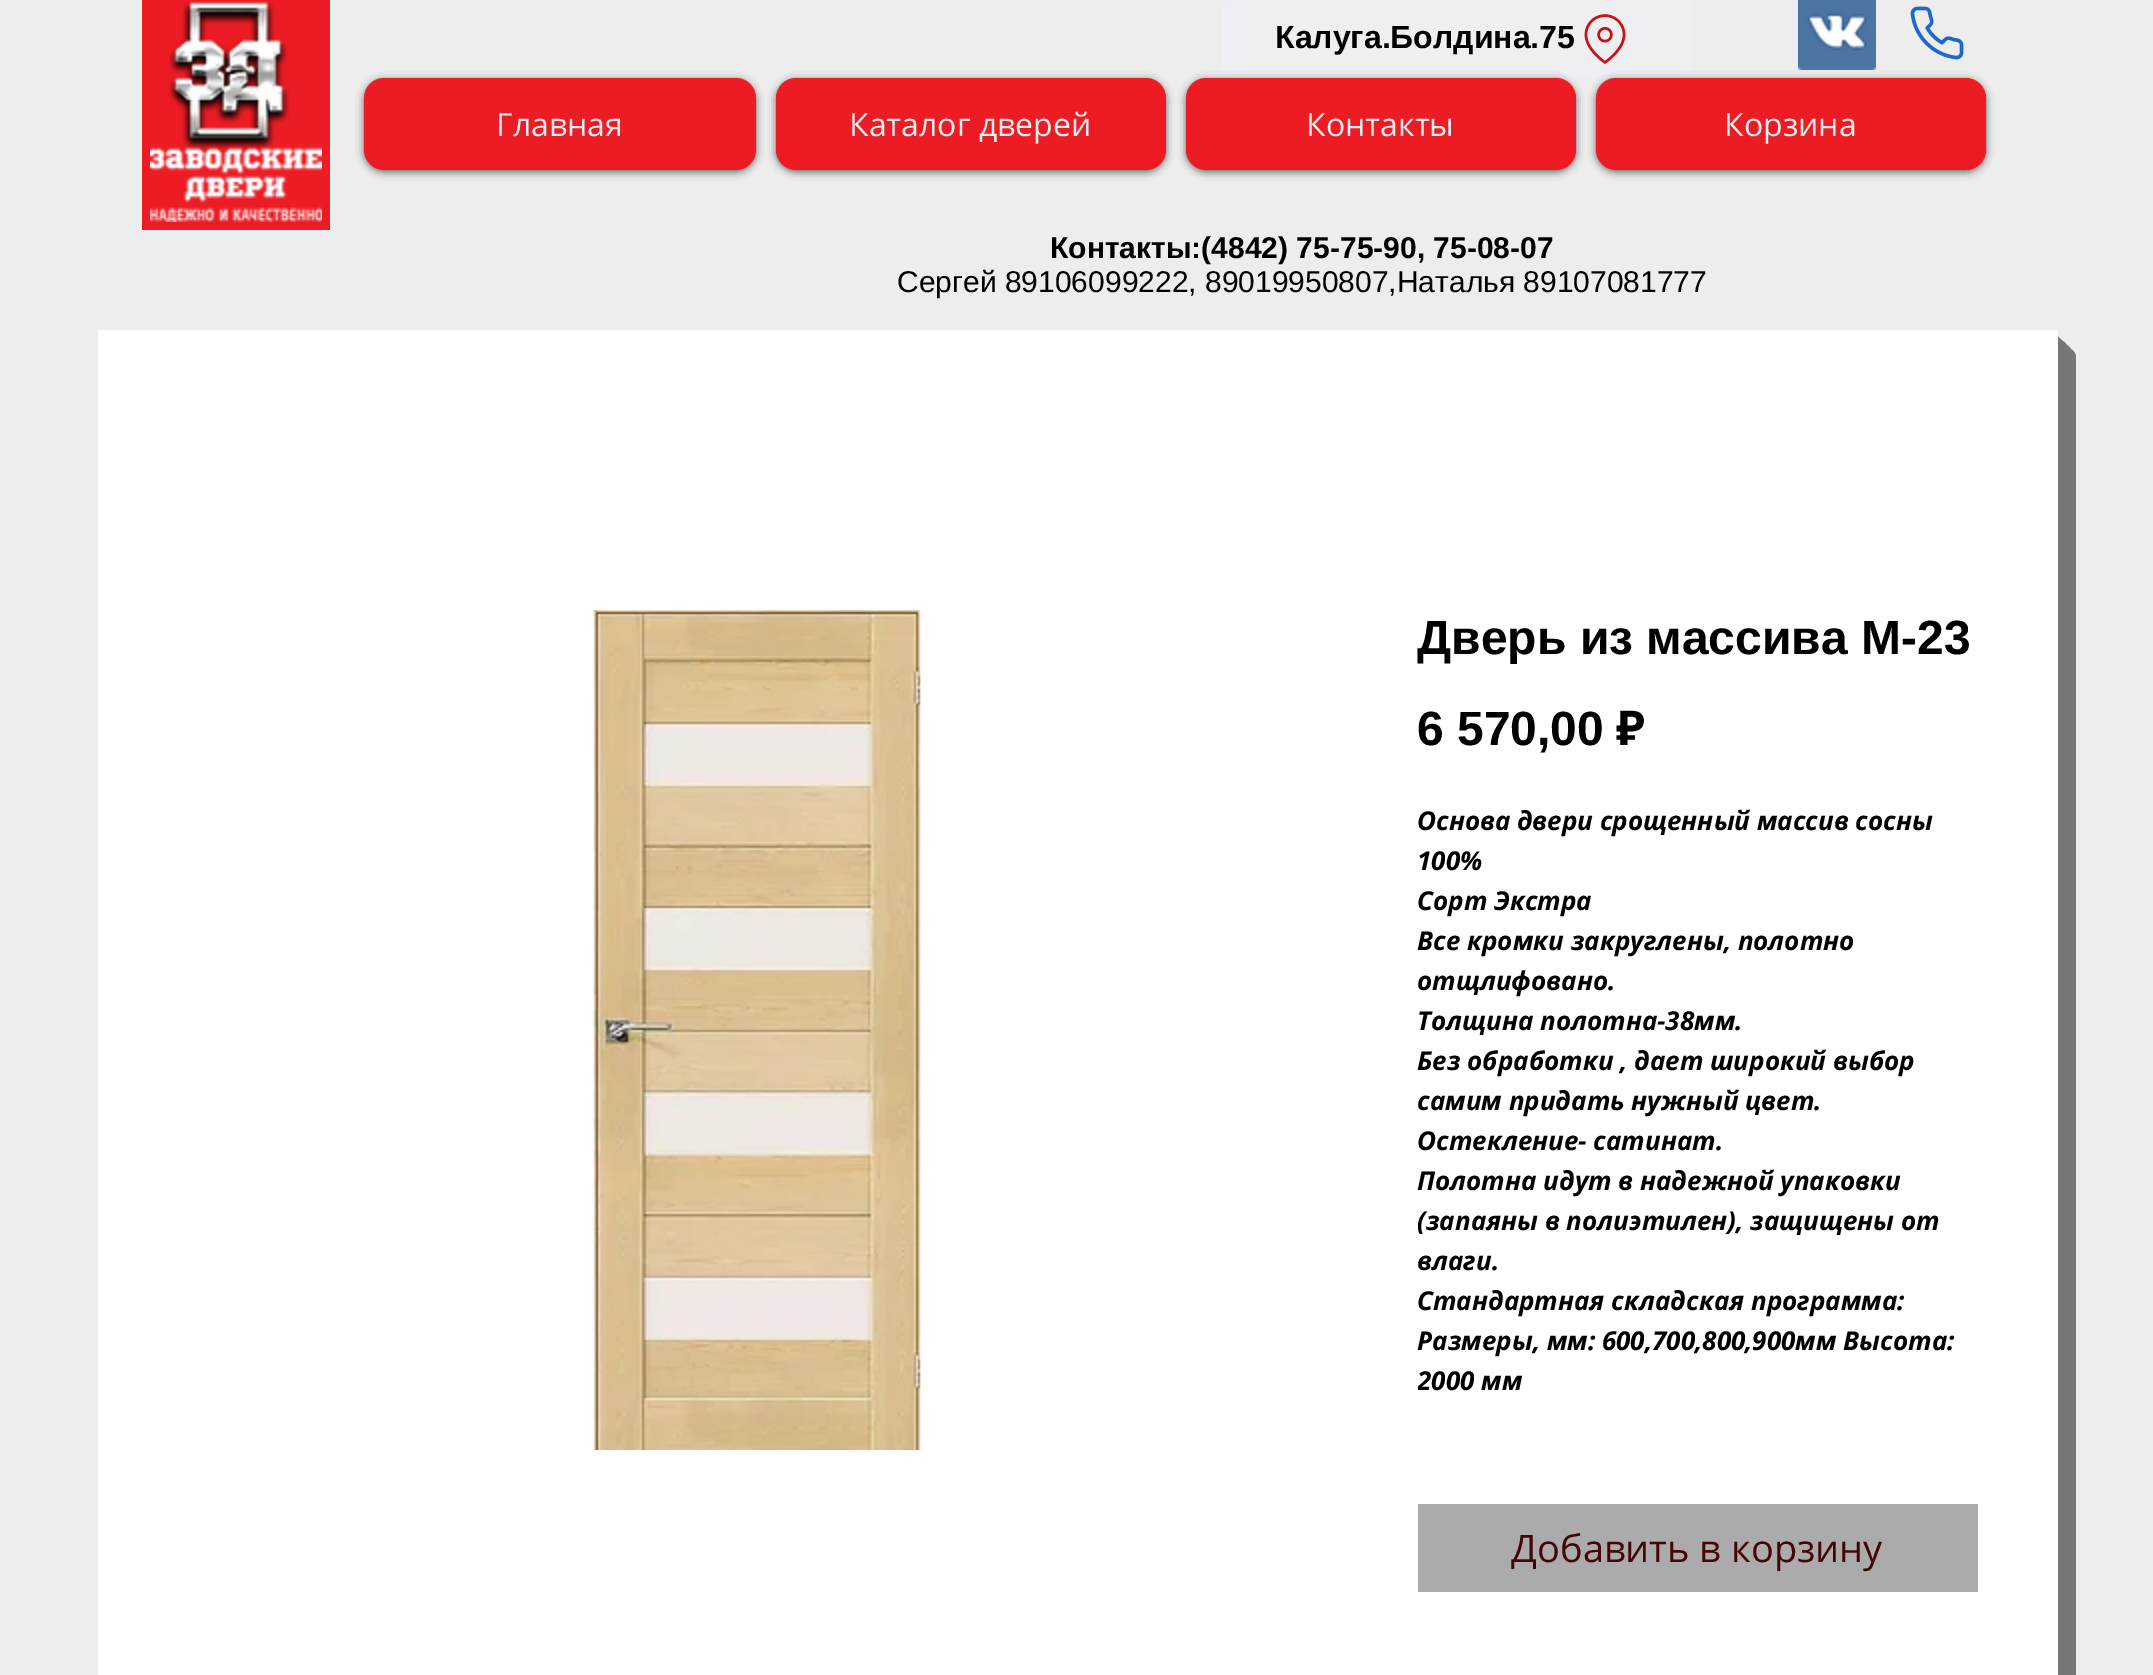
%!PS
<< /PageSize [2153 1675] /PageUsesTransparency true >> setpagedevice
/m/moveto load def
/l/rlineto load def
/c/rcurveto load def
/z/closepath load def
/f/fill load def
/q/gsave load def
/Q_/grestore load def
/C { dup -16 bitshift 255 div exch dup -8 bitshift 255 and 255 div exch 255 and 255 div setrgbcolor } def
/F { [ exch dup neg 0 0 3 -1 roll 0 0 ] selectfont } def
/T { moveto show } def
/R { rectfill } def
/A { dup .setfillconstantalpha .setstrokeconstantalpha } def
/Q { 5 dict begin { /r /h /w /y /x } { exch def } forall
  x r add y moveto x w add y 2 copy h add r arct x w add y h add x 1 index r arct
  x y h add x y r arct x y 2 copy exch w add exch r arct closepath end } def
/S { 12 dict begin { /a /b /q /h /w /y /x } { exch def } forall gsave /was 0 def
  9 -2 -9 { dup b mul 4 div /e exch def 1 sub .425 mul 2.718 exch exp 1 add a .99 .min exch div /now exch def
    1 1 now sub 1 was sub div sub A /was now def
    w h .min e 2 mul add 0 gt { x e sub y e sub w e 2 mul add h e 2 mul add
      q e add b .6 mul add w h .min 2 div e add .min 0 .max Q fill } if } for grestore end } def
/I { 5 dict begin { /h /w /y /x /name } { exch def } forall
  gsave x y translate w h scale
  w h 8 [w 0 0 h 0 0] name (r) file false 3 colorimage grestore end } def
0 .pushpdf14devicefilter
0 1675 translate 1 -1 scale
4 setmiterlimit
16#EDEDED C
0 0 2153 1675 R
16#ED1C24 C
142 0 188 230 R
(1.rgb) 150 1 172 221 I
16#EFEFF3 C
1222 -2 470 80 14 Q f
/LiberationSans-Bold 32 F
16#000000 C
(Калуга.Болдина.75) 1275 48 T
(2.rgb) 1584 14 42 50 I
(3.rgb) 1798 0 78 70 I
(4.rgb) 1910 6 54 54 I
364 80 392 92 20 4 .6 S
16#ED1C24 C
364 78 392 92 20 Q f
/OpenSans-Regular 32 F
16#EDEDED C
(Главная) 496 136 T
16#000000 C
776 80 390 92 20 4 .6 S
16#ED1C24 C
776 78 390 92 20 Q f
16#EDEDED C
(Каталог дверей) 849 136 T
16#000000 C
1186 80 390 92 20 4 .6 S
16#ED1C24 C
1186 78 390 92 20 Q f
16#EDEDED C
(Контакты) 1306 136 T
16#000000 C
1596 80 390 92 20 4 .6 S
16#ED1C24 C
1596 78 390 92 20 Q f
16#EDEDED C
(Корзина) 1724 136 T
/LiberationSans-Bold 30 F
16#000000 C
(Контакты:\(4842\) 75-75-90, 75-08-07) 1050 258 T
/LiberationSans-Regular 30 F
(Сергей 89106099222, 89019950807,Наталья 89107081777) 897 292 T
16#777777 C
116 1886 m 0 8 l 0 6 4 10 10 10 c 1940 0 l 6 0 10 -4 10 -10 c 0 -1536 l 0 -6 -4 -10 -10 -10 c -8 0 l 0 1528 l 0 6 -4 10 -10 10 c z f
112 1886 m 0 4 l 0 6 4 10 10 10 c 1940 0 l 6 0 10 -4 10 -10 c 0 -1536 l 0 -6 -4 -10 -10 -10 c -4 0 l 0 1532 l 0 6 -4 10 -10 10 c z f
108 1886 m 0 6 4 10 10 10 c 1940 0 l 6 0 10 -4 10 -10 c 0 -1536 l 0 -6 -4 -10 -10 -10 c 0 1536 l 0 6 -4 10 -10 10 c z f
105 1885 m 1 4 5 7 9 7 c 1940 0 l 6 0 10 -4 10 -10 c 0 -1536 l 0 -4 -3 -8 -7 -9 c 1 3 l 0 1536 l 0 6 -4 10 -10 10 c -1940 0 l z f
102 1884 m 2 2 5 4 8 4 c 1940 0 l 6 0 10 -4 10 -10 c 0 -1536 l 0 -3 -2 -6 -4 -8 c 1 2 2 4 2 6 c 0 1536 l 0 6 -4 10 -10 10 c -1940 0 l -2 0 -4 -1 -6 -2 c z f
16#FFFFFF C
98 330 1960 1345 R
(5.rgb) 593 610 328 840 I
/LiberationSans-Bold 48 F
16#000000 C
(Дверь из массива М-23) 1417 654 T
(6 570,00) 1417 745 T
/NotoSans-Bold 48 F
(₽) 1616 745 T
/OpenSans-BoldItalic 26 F
(Основа двери срощенный массив сосны) 1417 830 T
(100%) 1417 870 T
(Сорт Экстра) 1417 910 T
(Все кромки закруглены, полотно) 1417 950 T
(отщлифовано.) 1417 990 T
(Толщина полотна-38мм.) 1417 1030 T
(Без обработки , дает широкий выбор) 1417 1070 T
(самим придать нужный цвет.) 1417 1110 T
(Остекление- сатинат.) 1417 1150 T
(Полотна идут в надежной упаковки) 1417 1190 T
(\(запаяны в полиэтилен\), защищены от) 1417 1230 T
(влаги.) 1417 1270 T
(Стандартная складская программа:) 1417 1310 T
(Размеры, мм: 600,700,800,900мм Высота:) 1417 1350 T
q
1418 800 560 640 rectclip
(2000 мм) 1417 1390 T
Q_
16#ABABAB C
1418 1504 560 88 R
/OpenSans-Regular 38 F
16#440506 C
(Добавить в корзину) 1511 1562 T
.poppdf14devicefilter showpage
